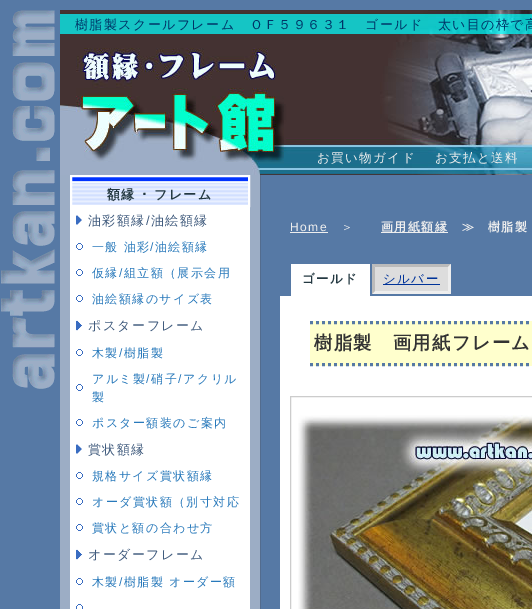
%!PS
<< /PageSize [532 609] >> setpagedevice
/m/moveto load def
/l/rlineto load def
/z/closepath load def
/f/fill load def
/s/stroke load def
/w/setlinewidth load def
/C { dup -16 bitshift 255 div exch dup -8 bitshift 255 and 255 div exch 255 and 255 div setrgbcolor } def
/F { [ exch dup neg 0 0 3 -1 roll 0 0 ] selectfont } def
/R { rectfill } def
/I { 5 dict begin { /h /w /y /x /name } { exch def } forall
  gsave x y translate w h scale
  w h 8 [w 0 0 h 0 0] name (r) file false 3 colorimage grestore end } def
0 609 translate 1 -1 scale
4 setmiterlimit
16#5679A5 C
0 0 532 609 R
(1.rgb) 1 10 54 379 I
(2.rgb) 60 10 472 165 I
/WenQuanYiZenHei-Medium 13 F
16#003366 C
75 29 m 1.4 0 (樹脂製スクールフレーム　ＯＦ５９６３１　ゴールド　太い目の枠で高) ashow
(3.rgb) 60 48 226 113 I
/WenQuanYiZenHei-Medium 12.5 F
16#EEEEEE C
317 162 m 1.4 0 (お買い物ガイド) ashow
435 162 m 1.4 0 (お支払と送料) ashow
16#9CADC5 C
60 175 200 434 R
16#536C8E C
260 175 1 434 R
(4.rgb) 72 177 176 28 I
16#FFFFFF C
2 w
71 176 178 30 rectstroke
/WenQuanYiZenHei-Bold 13 F
16#243942 C
107 199 m 1.4 0 (額縁) ashow
/IPAGothic-Bold 13 F
141 199 m 1.4 0 (･) ashow
/WenQuanYiZenHei-Bold 13 F
154 199 m 1.4 0 (フレーム) ashow
16#FFFFFF C
70 207 180 402 R
(5.rgb) 76 215 6 10 I
/WenQuanYiZenHei-Medium 13 F
16#415C7E C
88 225 m 1.4 0 (油彩額縁 油絵額縁) ashow
/LiberationSans-Regular 13 F
146 225 m 1.4 0 (/) ashow
(6.rgb) 76 243 7 7 I
/WenQuanYiZenHei-Medium 12 F
16#2879BB C
92 251 m 1.4 0 (一般 油彩) ashow
/LiberationSans-Regular 12 F
150 251 m 1.4 0 (/) ashow
/WenQuanYiZenHei-Medium 12 F
155 251 m 1.4 0 (油絵額縁) ashow
(6.rgb) 76 269 7 7 I
92 277 m 1.4 0 (仮縁 組立額（展示会用) ashow
/LiberationSans-Regular 12 F
119 277 m 1.4 0 (/) ashow
(6.rgb) 76 295 7 7 I
/WenQuanYiZenHei-Medium 12 F
92 303 m 1.4 0 (油絵額縁のサイズ表) ashow
(7.rgb) 76 320 6 11 I
/WenQuanYiZenHei-Medium 13 F
16#415C7E C
88 330 m 1.4 0 (ポスターフレーム) ashow
(6.rgb) 76 349 7 7 I
/WenQuanYiZenHei-Medium 12 F
16#2879BB C
92 357 m 1.4 0 (木製 樹脂製) ashow
/LiberationSans-Regular 12 F
119 357 m 1.4 0 (/) ashow
(6.rgb) 76 384 7 7 I
/WenQuanYiZenHei-Medium 12 F
92 383 m 1.4 0 (アルミ製 硝子 アクリル) ashow
/LiberationSans-Regular 12 F
146 383 m 1.4 0 (/) ashow
178 383 m 1.4 0 (/) ashow
/WenQuanYiZenHei-Medium 12 F
92 401 m 1.4 0 (製) ashow
(6.rgb) 76 419 7 7 I
92 427 m 1.4 0 (ポスター額装のご案内) ashow
(5.rgb) 76 444 6 10 I
/WenQuanYiZenHei-Medium 13 F
16#415C7E C
88 454 m 1.4 0 (賞状額縁) ashow
(6.rgb) 76 472 7 7 I
/WenQuanYiZenHei-Medium 12 F
16#2879BB C
92 480 m 1.4 0 (規格サイズ賞状額縁) ashow
(6.rgb) 76 498 7 7 I
92 506 m 1.4 0 (オーダ賞状額（別寸対応) ashow
(6.rgb) 76 524 7 7 I
92 532 m 1.4 0 (賞状と額の合わせ方) ashow
(8.rgb) 76 549 6 11 I
/WenQuanYiZenHei-Medium 13 F
16#415C7E C
88 559 m 1.4 0 (オーダーフレーム) ashow
(6.rgb) 76 578 7 7 I
/WenQuanYiZenHei-Medium 12 F
16#2879BB C
92 586 m 1.4 0 (木製) ashow
/LiberationSans-Regular 12 F
119 586 m 1.4 0 (/) ashow
/WenQuanYiZenHei-Medium 12 F
124 586 m 1.4 0 (樹脂製 オーダー額) ashow
(9.rgb) 76 604 7 5 I
/LiberationSans-Regular 12 F
16#EEEEEE C
290 231 m 1.4 0 (Home) ashow
290 232 38 1 R
/WenQuanYiZenHei-Medium 12 F
341 231 m 1.4 0 (＞) ashow
381 232 67 1 R
/WenQuanYiZenHei-Bold 12 F
381 231 m 1.4 0 (画用紙額縁) ashow
462 231 m 1.4 0 (≫) ashow
488 231 m 1.4 0 (樹脂製) ashow
16#FFFFFF C
291 264 79 32 R
/WenQuanYiZenHei-Bold 12.5 F
16#243942 C
302 283 m 1.4 0 (ゴールド) ashow
16#DDDDDD C
372 264 79 30 R
16#BBBBBB C
372 264 m 79 0 l -3 3 l -73 0 l z f
16#EEEEEE C
451 264 m 0 30 l -3 -3 l 0 -24 l z f
451 294 m -79 0 l 3 -3 l 73 0 l z f
16#BBBBBB C
372 294 m 0 -30 l 3 3 l 0 24 l z f
16#003399 C
383 284 57 1 R
/WenQuanYiZenHei-Medium 12.5 F
383 283 m 1.4 0 (シルバー) ashow
16#FFFFFF C
280 296 252 313 R
16#FFFFCD C
310 321 222 45 R
16#5679A5 C
3 w
[3 3] 0 setdash
310 322.5 m 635 0 l s
310 364.5 m 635 0 l s
/WenQuanYiZenHei-Bold 18.25 F
16#333333 C
314 349 m 1.4 0 (樹脂製　画用紙フレーム) ashow
16#CCCCCC C
1 w
[] 0 setdash
290.5 396.5 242 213 rectstroke
(10.rgb) 298 415 234 194 I
showpage
